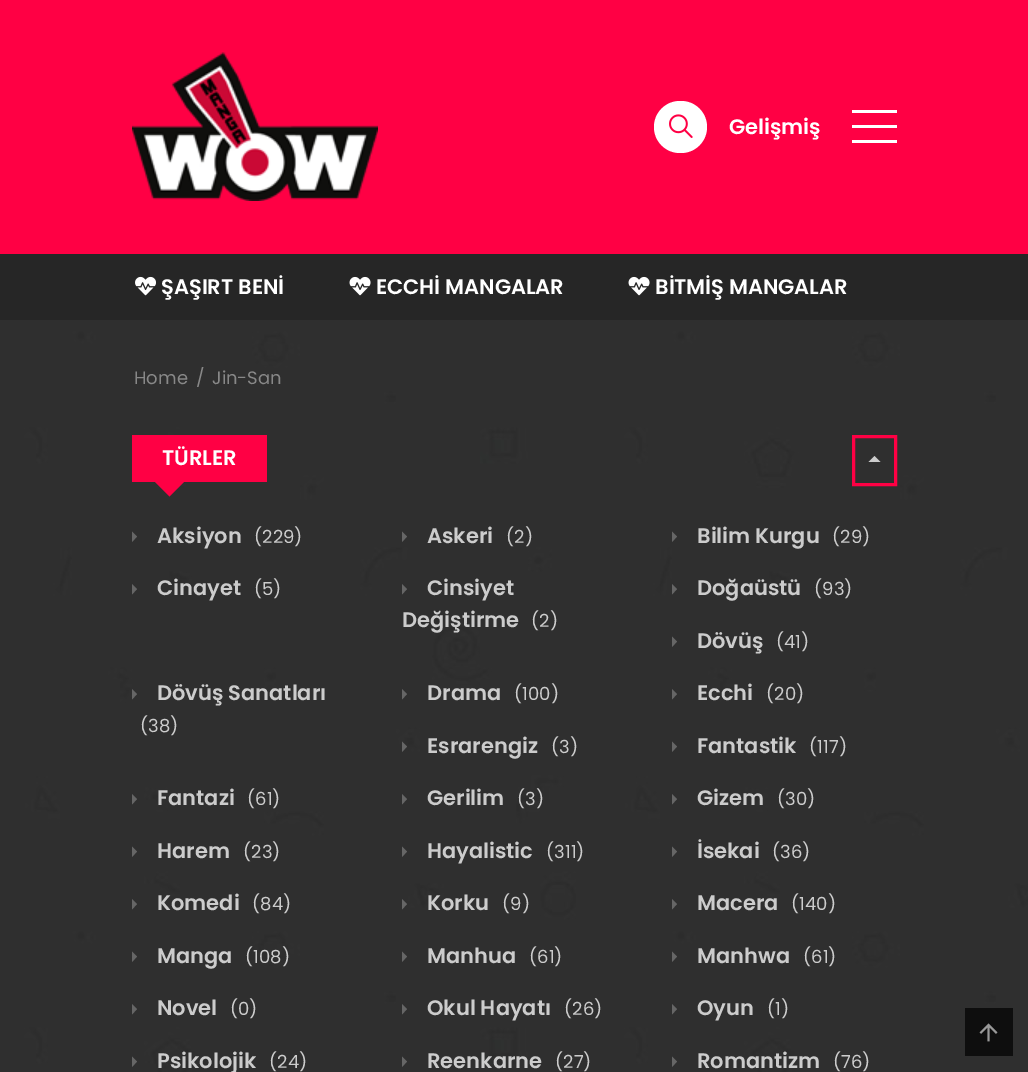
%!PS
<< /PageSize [1028 1072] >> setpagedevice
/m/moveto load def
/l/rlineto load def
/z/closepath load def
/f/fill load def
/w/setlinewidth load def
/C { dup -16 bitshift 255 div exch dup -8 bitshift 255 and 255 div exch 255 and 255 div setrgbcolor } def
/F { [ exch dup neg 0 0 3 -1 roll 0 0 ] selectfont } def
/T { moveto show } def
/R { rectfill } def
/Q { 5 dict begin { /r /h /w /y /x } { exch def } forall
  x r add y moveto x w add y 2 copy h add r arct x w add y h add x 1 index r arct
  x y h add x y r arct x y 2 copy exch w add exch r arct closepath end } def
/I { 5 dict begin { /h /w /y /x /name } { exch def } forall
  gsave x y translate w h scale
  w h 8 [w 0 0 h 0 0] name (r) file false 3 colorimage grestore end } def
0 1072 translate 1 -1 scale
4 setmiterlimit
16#FFFFFF C
0 0 1028 1072 R
16#FF0044 C
0 0 1028 254 R
(1.rgb) 132 52 246 149 I
16#FFFFFF C
654 101 53 52 26 Q f
(2.rgb) 669 114 24 24 I
/Poppins-SemiBold 21 F
(Gelişmiş) 729 134 T
852 110 45 3 R
852 125 45 3 R
852 140 45 3 R
16#262626 C
0 254 1028 66 R
(3.rgb) 135 276 21 20 I
16#FFFFFF C
(ŞAŞIRT BENİ) 161 294 T
(4.rgb) 349 276 22 20 I
(ECCHİ MANGALAR) 376 294 T
(4.rgb) 628 276 22 20 I
(BİTMİŞ MANGALAR) 655 294 T
(5.rgb) 0 320 1028 752 I
/Poppins-Regular 18 F
16#888888 C
(Home) 134 384 T
(/) 196 384 T
(Jin-San) 212 384 T
16#FF0044 C
132 435 135 47 R
/Poppins-SemiBold 21 F
16#FFFFFF C
(TÜRLER) 162 465 T
16#FF0044 C
154.5 481.5 m 30 0 l -15 15 l z f
3 w
853.5 436.5 42 48 rectstroke
16#CCCCCC C
868.5 462 m 6 -6 l 6 6 l z f
16#666666 C
132 531.5 m 5 5 l -5 5.5 l z f
16#CCCCCC C
(Aksiyon) 157 543 T
/Poppins-Regular 18 F
(\(229\)) 254 543 T
16#666666 C
402 531.5 m 5 5 l -5 5.5 l z f
/Poppins-SemiBold 21 F
16#CCCCCC C
(Askeri) 427 543 T
/Poppins-Regular 18 F
(\(2\)) 506 543 T
16#666666 C
672 531.5 m 5 5 l -5 5.5 l z f
/Poppins-SemiBold 21 F
16#CCCCCC C
(Bilim Kurgu) 697 543 T
/Poppins-Regular 18 F
(\(29\)) 832 543 T
16#666666 C
132 584 m 5 5 l -5 5.5 l z f
/Poppins-SemiBold 21 F
16#CCCCCC C
(Cinayet) 157 595 T
/Poppins-Regular 18 F
(\(5\)) 254 595 T
16#666666 C
402 584 m 5 5 l -5 5.5 l z f
/Poppins-SemiBold 21 F
16#CCCCCC C
(Cinsiyet) 427 595 T
(Değiştirme) 402 627 T
/Poppins-Regular 18 F
(\(2\)) 531 627 T
16#666666 C
672 584 m 5 5 l -5 5.5 l z f
/Poppins-SemiBold 21 F
16#CCCCCC C
(Doğaüstü) 697 595 T
/Poppins-Regular 18 F
(\(93\)) 814 595 T
16#666666 C
672 636.5 m 5 5 l -5 5.5 l z f
/Poppins-SemiBold 21 F
16#CCCCCC C
(Dövüş) 697 648 T
/Poppins-Regular 18 F
(\(41\)) 776 648 T
16#666666 C
132 689 m 5 5 l -5 5.5 l z f
/Poppins-SemiBold 21 F
16#CCCCCC C
(Dövüş Sanatları) 157 700 T
/Poppins-Regular 18 F
(\(38\)) 140 732 T
16#666666 C
402 689 m 5 5 l -5 5.5 l z f
/Poppins-SemiBold 21 F
16#CCCCCC C
(Drama) 427 700 T
/Poppins-Regular 18 F
(\(100\)) 514 700 T
16#666666 C
672 689 m 5 5 l -5 5.5 l z f
/Poppins-SemiBold 21 F
16#CCCCCC C
(Ecchi) 697 700 T
/Poppins-Regular 18 F
(\(20\)) 766 700 T
16#666666 C
402 741.5 m 5 5 l -5 5.5 l z f
/Poppins-SemiBold 21 F
16#CCCCCC C
(Esrarengiz) 427 753 T
/Poppins-Regular 18 F
(\(3\)) 551 753 T
16#666666 C
672 741.5 m 5 5 l -5 5.5 l z f
/Poppins-SemiBold 21 F
16#CCCCCC C
(Fantastik) 697 753 T
/Poppins-Regular 18 F
(\(117\)) 809 753 T
16#666666 C
132 794 m 5 5 l -5 5.5 l z f
/Poppins-SemiBold 21 F
16#CCCCCC C
(Fantazi) 157 805 T
/Poppins-Regular 18 F
(\(61\)) 247 805 T
16#666666 C
402 794 m 5 5 l -5 5.5 l z f
/Poppins-SemiBold 21 F
16#CCCCCC C
(Gerilim) 427 805 T
/Poppins-Regular 18 F
(\(3\)) 517 805 T
16#666666 C
672 794 m 5 5 l -5 5.5 l z f
/Poppins-SemiBold 21 F
16#CCCCCC C
(Gizem) 697 805 T
/Poppins-Regular 18 F
(\(30\)) 777 805 T
16#666666 C
132 846.5 m 5 5 l -5 5.5 l z f
/Poppins-SemiBold 21 F
16#CCCCCC C
(Harem) 157 858 T
/Poppins-Regular 18 F
(\(23\)) 243 858 T
16#666666 C
402 846.5 m 5 5 l -5 5.5 l z f
/Poppins-SemiBold 21 F
16#CCCCCC C
(Hayalistic) 427 858 T
/Poppins-Regular 18 F
(\(311\)) 546 858 T
16#666666 C
672 846.5 m 5 5 l -5 5.5 l z f
/Poppins-SemiBold 21 F
16#CCCCCC C
(İsekai) 697 858 T
/Poppins-Regular 18 F
(\(36\)) 772 858 T
16#666666 C
132 899 m 5 5 l -5 5.5 l z f
/Poppins-SemiBold 21 F
16#CCCCCC C
(Komedi) 157 910 T
/Poppins-Regular 18 F
(\(84\)) 252 910 T
16#666666 C
402 899 m 5 5 l -5 5.5 l z f
/Poppins-SemiBold 21 F
16#CCCCCC C
(Korku) 427 910 T
/Poppins-Regular 18 F
(\(9\)) 502 910 T
16#666666 C
672 899 m 5 5 l -5 5.5 l z f
/Poppins-SemiBold 21 F
16#CCCCCC C
(Macera) 697 910 T
/Poppins-Regular 18 F
(\(140\)) 791 910 T
16#666666 C
132 951.5 m 5 5 l -5 5.5 l z f
/Poppins-SemiBold 21 F
16#CCCCCC C
(Manga) 157 963 T
/Poppins-Regular 18 F
(\(108\)) 245 963 T
16#666666 C
402 951.5 m 5 5 l -5 5.5 l z f
/Poppins-SemiBold 21 F
16#CCCCCC C
(Manhua) 427 963 T
/Poppins-Regular 18 F
(\(61\)) 529 963 T
16#666666 C
672 951.5 m 5 5 l -5 5.5 l z f
/Poppins-SemiBold 21 F
16#CCCCCC C
(Manhwa) 697 963 T
/Poppins-Regular 18 F
(\(61\)) 803 963 T
16#666666 C
132 1004 m 5 5 l -5 5.5 l z f
/Poppins-SemiBold 21 F
16#CCCCCC C
(Novel) 157 1015 T
/Poppins-Regular 18 F
(\(0\)) 230 1015 T
16#666666 C
402 1004 m 5 5 l -5 5.5 l z f
/Poppins-SemiBold 21 F
16#CCCCCC C
(Okul Hayatı) 427 1015 T
/Poppins-Regular 18 F
(\(26\)) 564 1015 T
16#666666 C
672 1004 m 5 5 l -5 5.5 l z f
/Poppins-SemiBold 21 F
16#CCCCCC C
(Oyun) 697 1015 T
/Poppins-Regular 18 F
(\(1\)) 767 1015 T
16#666666 C
132 1056.5 m 5 5 l -5 5.5 l z f
/Poppins-SemiBold 21 F
16#CCCCCC C
(Psikolojik) 157 1068 T
/Poppins-Regular 18 F
(\(24\)) 269 1068 T
16#666666 C
402 1056.5 m 5 5 l -5 5.5 l z f
/Poppins-SemiBold 21 F
16#CCCCCC C
(Reenkarne) 427 1068 T
/Poppins-Regular 18 F
(\(27\)) 555 1068 T
16#666666 C
672 1056.5 m 5 5 l -5 5.5 l z f
/Poppins-SemiBold 21 F
16#CCCCCC C
(Romantizm) 697 1068 T
/Poppins-Regular 18 F
(\(76\)) 833 1068 T
16#0E0E0E C
965 1008 48 48 R
(6.rgb) 979 1023 19 19 I
showpage
